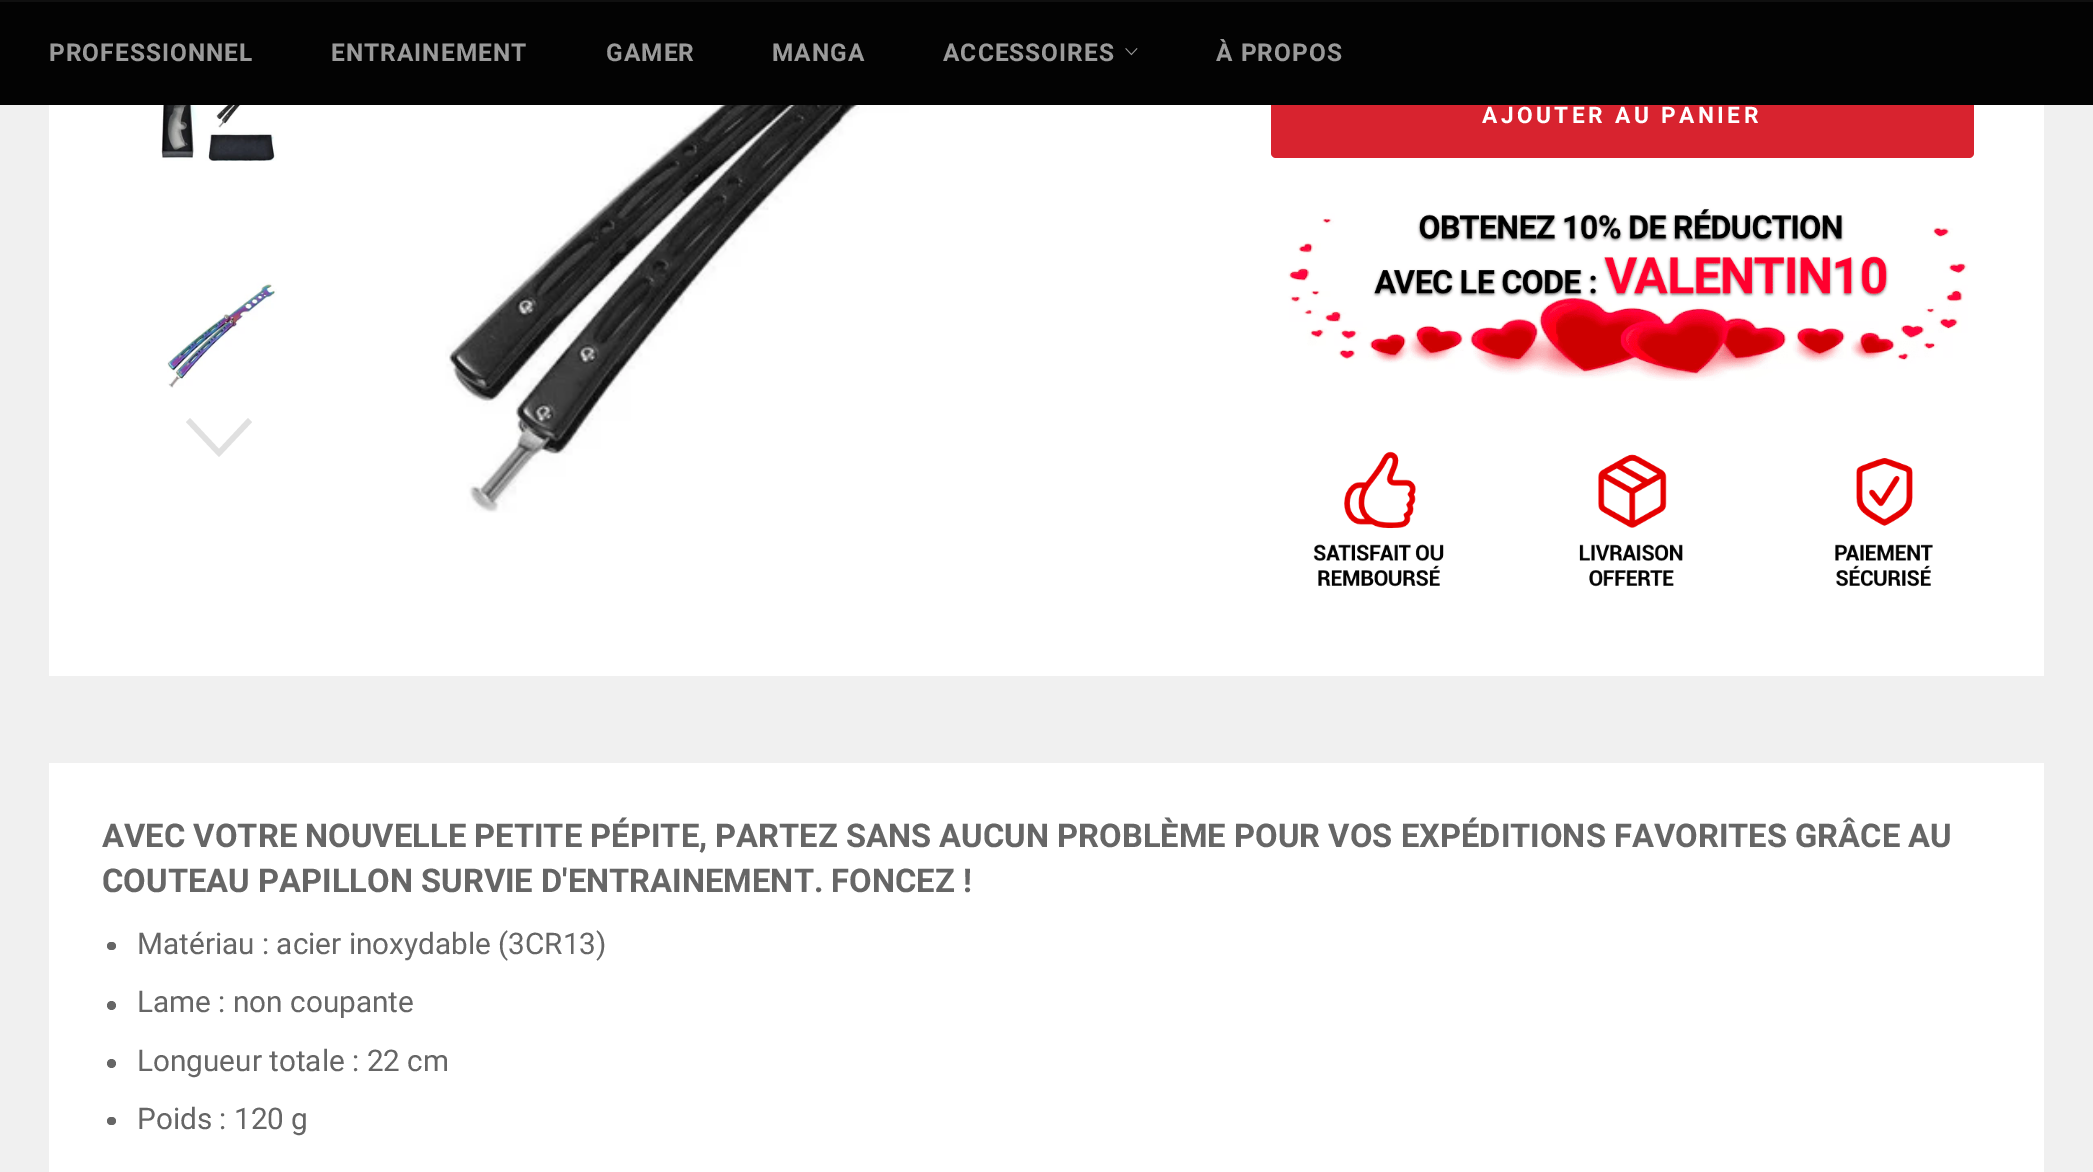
%!PS
<< /PageSize [2093 1172] >> setpagedevice
/m/moveto load def
/l/rlineto load def
/z/closepath load def
/f/fill load def
/C { dup -16 bitshift 255 div exch dup -8 bitshift 255 and 255 div exch 255 and 255 div setrgbcolor } def
/F { [ exch dup neg 0 0 3 -1 roll 0 0 ] selectfont } def
/T { moveto show } def
/R { rectfill } def
/O { newpath 0 360 arc closepath } def
/Q { 5 dict begin { /r /h /w /y /x } { exch def } forall
  x r add y moveto x w add y 2 copy h add r arct x w add y h add x 1 index r arct
  x y h add x y r arct x y 2 copy exch w add exch r arct closepath end } def
/I { 5 dict begin { /h /w /y /x /name } { exch def } forall
  gsave x y translate w h scale
  w h 8 [w 0 0 h 0 0] name (r) file false 3 colorimage grestore end } def
0 1172 translate 1 -1 scale
4 setmiterlimit
16#F0F0F0 C
0 0 2093 1172 R
16#FFFFFF C
49 105 1995 571 R
16#D8232F C
1271 74 703 84 5 Q f
16#030303 C
0 2 2093 103 R
16#101010 C
0 0 2093 2 R
/Roboto-Bold 24.5 F
16#9A9A9A C
49 61 m 1 0 (PROFESSIONNEL) ashow
331 61 m 1 0 (ENTRAINEMENT) ashow
606 61 m 1 0 (GAMER) ashow
772 61 m 1 0 (MANGA) ashow
943 61 m 1 0 (ACCESSOIRES) ashow
(1.rgb) 1125 48 13 8 I
1216 61 m 1 0 (À PROPOS) ashow
(2.rgb) 161 105 121 56 I
(3.rgb) 167 282 110 106 I
16#E0E0E0 C
248 418 m 4 4 l -33 35 l -33 -35 l 4 -4 l 29 31 l z f
(4.rgb) 445 105 510 408 I
/Roboto-Bold 22.75 F
16#FFFFFF C
1482 123 m 3.4 0 (AJOUTER AU PANIER) ashow
(5.rgb) 1288 208 680 173 I
(6.rgb) 1313 451 620 136 I
49 763 1995 409 R
/Roboto-Bold 32.73 F
16#666666 C
(AVEC VOTRE NOUVELLE PETITE PÉPITE, PARTEZ SANS AUCUN PROBLÈME POUR VOS EXPÉDITIONS FAVORITES GRÂCE AU) 102 847 T
(COUTEAU PAPILLON SURVIE D'ENTRAINEMENT. FONCEZ !) 102 892 T
107 942 9 8 4 Q f
/Roboto-Regular 29.75 F
(Matériau : acier inoxydable \(3CR13\)) 137 954 T
111.5 1005.5 4.5 O f
(Lame : non coupante) 137 1012 T
111.5 1063.5 4.5 O f
(Longueur totale : 22 cm) 137 1071 T
107 1117 9 8 4 Q f
(Poids : 120 g) 137 1129 T
showpage
